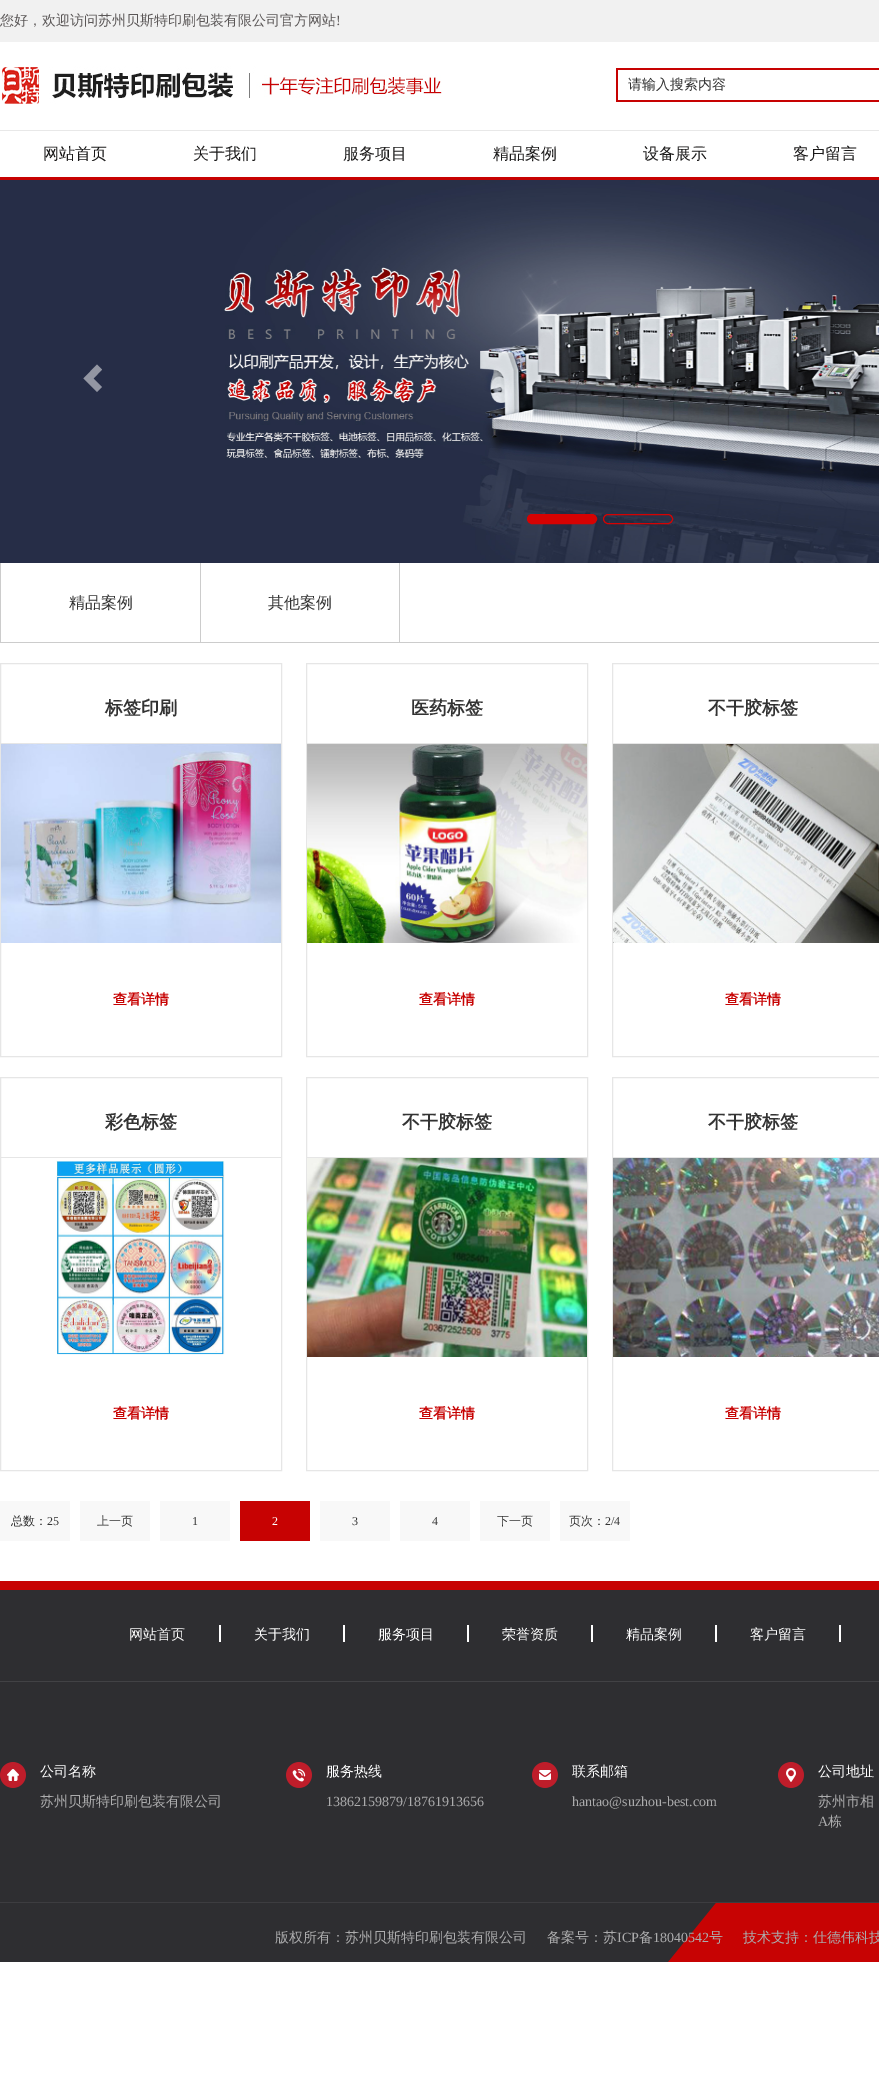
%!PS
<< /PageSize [879 2098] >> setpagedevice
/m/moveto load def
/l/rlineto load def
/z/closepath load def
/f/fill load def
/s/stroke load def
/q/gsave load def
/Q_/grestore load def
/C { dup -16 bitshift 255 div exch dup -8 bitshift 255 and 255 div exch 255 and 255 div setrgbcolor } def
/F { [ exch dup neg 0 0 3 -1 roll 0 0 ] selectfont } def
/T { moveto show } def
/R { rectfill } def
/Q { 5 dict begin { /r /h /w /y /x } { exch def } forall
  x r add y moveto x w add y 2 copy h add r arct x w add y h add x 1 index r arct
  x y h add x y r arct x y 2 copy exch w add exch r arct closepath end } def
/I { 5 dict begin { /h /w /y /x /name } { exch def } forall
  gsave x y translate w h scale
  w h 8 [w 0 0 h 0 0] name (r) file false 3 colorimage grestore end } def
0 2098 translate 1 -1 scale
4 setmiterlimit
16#FFFFFF C
0 0 879 2098 R
16#F1F1F1 C
0 0 879 42 R
/WenQuanYiZenHei-Medium 14 F
16#5B5757 C
(您好，欢迎访问苏州贝斯特印刷包装有限公司官方网站) 0 25 T
/LiberationSerif-Regular 14 F
(!) 336 25 T
(1.rgb) 2 66 440 38 I
16#C70202 C
616 68 263 2 R
616 100 263 2 R
616 68 2 34 R
/WenQuanYiZenHei-Medium 14 F
16#333333 C
(请输入搜索内容) 628 89 T
16#E8E8E8 C
0 130 879 1 R
16#C70202 C
0 177 879 3 R
/WenQuanYiZenHei-Medium 16 F
16#1A1919 C
(网站首页) 43 159 T
(关于我们) 193 159 T
(服务项目) 343 159 T
(精品案例) 493 159 T
(设备展示) 643 159 T
(客户留言) 793 159 T
(2.rgb) 0 180 879 383 I
16#9396A3 C
102 369.5 m -8.5 9 l 8.5 8.5 l -5 5 l -13.5 -13.5 l 13.5 -14 l z f
16#D60202 C
527.5 514.5 69 9 4.5 Q q f Q_
s
603.5 514.5 69 9 4.5 Q s
16#CCCCCC C
0 642 879 1 R
0 563 1 79 R
16#333333 C
(精品案例) 69 608 T
16#CCCCCC C
399 563 1 79 R
200 563 1 79 R
16#333333 C
(其他案例) 268 608 T
16#E6E6E6 C
.5 663.5 281 393 rectstroke
1 743 280 1 R
/WenQuanYiZenHei-Bold 18 F
16#333333 C
(标签印刷) 105 714 T
(3.rgb) 1 744 280 199 I
/WenQuanYiZenHei-Bold 14 F
16#C70202 C
(查看详情) 113 1004 T
16#E6E6E6 C
306.5 663.5 281 393 rectstroke
307 743 280 1 R
/WenQuanYiZenHei-Bold 18 F
16#333333 C
(医药标签) 411 714 T
(4.rgb) 307 744 280 199 I
/WenQuanYiZenHei-Bold 14 F
16#C70202 C
(查看详情) 419 1004 T
16#E6E6E6 C
612.5 663.5 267 393 rectstroke
613 743 266 1 R
/WenQuanYiZenHei-Bold 18 F
16#333333 C
(不干胶标签) 708 714 T
(5.rgb) 613 744 266 199 I
/WenQuanYiZenHei-Bold 14 F
16#C70202 C
(查看详情) 725 1004 T
16#E6E6E6 C
.5 1077.5 281 393 rectstroke
1 1157 280 1 R
/WenQuanYiZenHei-Bold 18 F
16#333333 C
(彩色标签) 105 1128 T
(6.rgb) 56 1161 169 194 I
/WenQuanYiZenHei-Bold 14 F
16#C70202 C
(查看详情) 113 1418 T
16#E6E6E6 C
306.5 1077.5 281 393 rectstroke
307 1157 280 1 R
/WenQuanYiZenHei-Bold 18 F
16#333333 C
(不干胶标签) 402 1128 T
(7.rgb) 307 1158 280 199 I
/WenQuanYiZenHei-Bold 14 F
16#C70202 C
(查看详情) 419 1418 T
16#E6E6E6 C
612.5 1077.5 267 393 rectstroke
613 1157 266 1 R
/WenQuanYiZenHei-Bold 18 F
16#333333 C
(不干胶标签) 708 1128 T
(8.rgb) 613 1158 266 199 I
/WenQuanYiZenHei-Bold 14 F
16#C70202 C
(查看详情) 725 1418 T
16#F8F8F8 C
0 1501 70 40 R
/WenQuanYiZenHei-Medium 12 F
16#333333 C
(总数：) 11 1525 T
/LiberationSerif-Regular 12 F
(25) 47 1525 T
16#F8F8F8 C
80 1501 70 40 R
/WenQuanYiZenHei-Medium 12 F
16#333333 C
(上一页) 97 1525 T
16#F8F8F8 C
160 1501 70 40 R
/LiberationSerif-Regular 12 F
16#333333 C
(1) 192 1525 T
16#C70202 C
240 1501 70 40 R
16#FFFFFF C
(2) 272 1525 T
16#F8F8F8 C
320 1501 70 40 R
16#333333 C
(3) 352 1525 T
16#F8F8F8 C
400 1501 70 40 R
16#333333 C
(4) 432 1525 T
16#F8F8F8 C
480 1501 70 40 R
/WenQuanYiZenHei-Medium 12 F
16#333333 C
(下一页) 497 1525 T
16#F8F8F8 C
560 1501 70 40 R
16#333333 C
(页次：) 569 1525 T
/LiberationSerif-Regular 12 F
(2/4) 605 1525 T
16#2E2E31 C
0 1590 879 372 R
(9.rgb) 668 1903 211 59 I
16#C70202 C
0 1581 879 9 R
/WenQuanYiZenHei-Medium 14 F
16#FFFFFF C
(网站首页) 129 1639 T
219 1625 2 17 R
(关于我们) 254 1639 T
343 1625 2 17 R
(服务项目) 378 1639 T
467 1625 2 17 R
(荣誉资质) 502 1639 T
591 1625 2 17 R
(精品案例) 626 1639 T
715 1625 2 17 R
(客户留言) 750 1639 T
839 1625 2 17 R
16#424245 C
0 1681 879 1 R
(10.rgb) 0 1762 26 26 I
16#FFFFFF C
(公司名称) 40 1776 T
16#ACACAD C
(苏州贝斯特印刷包装有限公司) 40 1806 T
(11.rgb) 286 1762 26 26 I
16#FFFFFF C
(服务热线) 326 1776 T
/LiberationSerif-Regular 14 F
16#ACACAD C
(13862159879/18761913656) 326 1806 T
(12.rgb) 532 1762 26 26 I
/WenQuanYiZenHei-Medium 14 F
16#FFFFFF C
(联系邮箱) 572 1776 T
/LiberationSerif-Regular 14 F
16#ACACAD C
(hantao@suzhou-best.com) 572 1806 T
(13.rgb) 778 1762 26 26 I
/WenQuanYiZenHei-Medium 14 F
16#FFFFFF C
(公司地址) 818 1776 T
16#ACACAD C
(苏州市相) 818 1806 T
/LiberationSerif-Regular 14 F
(A) 818 1826 T
/WenQuanYiZenHei-Medium 14 F
(栋) 828 1826 T
16#3D3D40 C
0 1902 879 1 R
16#ACACAD C
(版权所有：苏州贝斯特印刷包装有限公司) 275 1942 T
(备案号：苏) 547 1942 T
/LiberationSerif-Regular 14 F
(ICP) 617 1942 T
/WenQuanYiZenHei-Medium 14 F
(备) 639 1942 T
/LiberationSerif-Regular 14 F
(18040542) 653 1942 T
/WenQuanYiZenHei-Medium 14 F
(号) 709 1942 T
(技术支持：仕德伟科技) 743 1942 T
showpage
